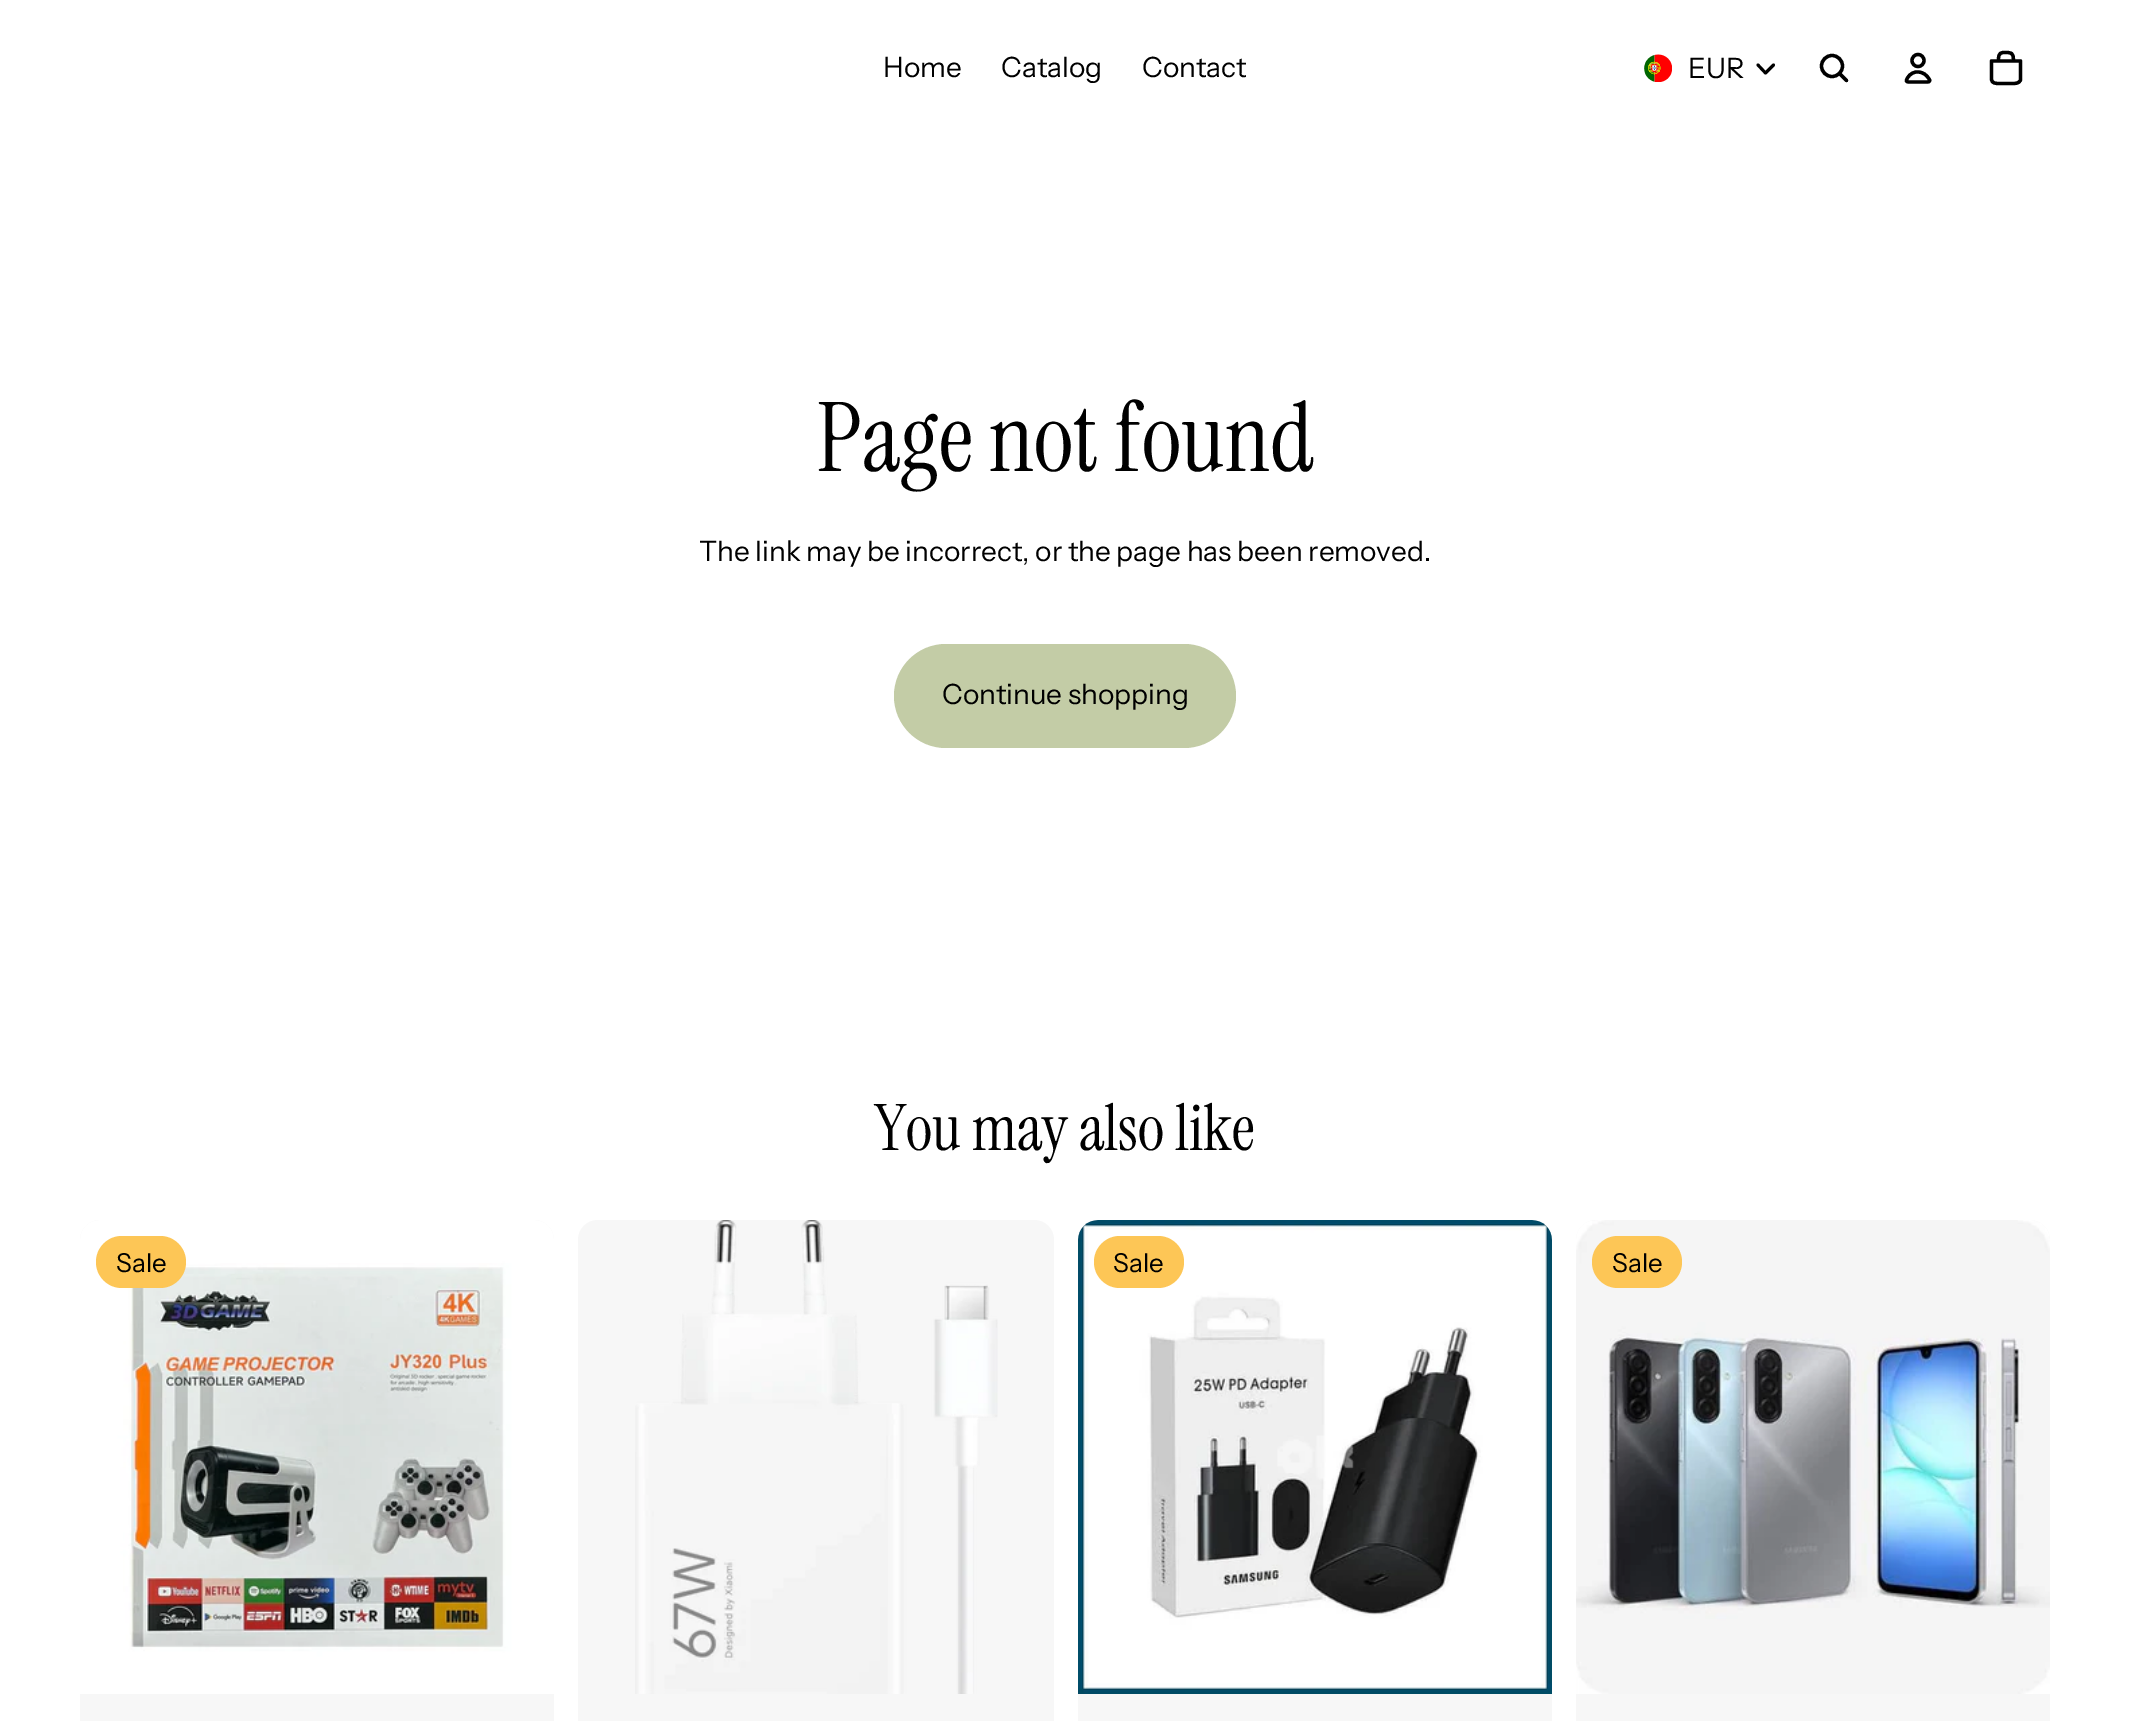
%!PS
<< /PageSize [2130 1721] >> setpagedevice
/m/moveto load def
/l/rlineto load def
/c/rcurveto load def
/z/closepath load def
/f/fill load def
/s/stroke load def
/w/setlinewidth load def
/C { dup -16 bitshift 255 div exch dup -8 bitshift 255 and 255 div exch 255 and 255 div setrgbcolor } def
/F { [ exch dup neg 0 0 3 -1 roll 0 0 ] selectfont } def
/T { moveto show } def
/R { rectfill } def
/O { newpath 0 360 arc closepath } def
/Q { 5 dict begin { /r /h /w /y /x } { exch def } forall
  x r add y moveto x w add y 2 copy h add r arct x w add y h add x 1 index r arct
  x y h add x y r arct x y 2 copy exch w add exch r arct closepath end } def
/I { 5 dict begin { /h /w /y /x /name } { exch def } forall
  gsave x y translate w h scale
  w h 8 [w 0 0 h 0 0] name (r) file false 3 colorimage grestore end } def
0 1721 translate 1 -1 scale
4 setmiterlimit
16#FFFFFF C
0 0 2130 1721 R
/InstrumentSans-Regular 28 F
16#000000 C
(Home) 883 77 T
(Catalog) 1001 77 T
(Contact) 1142 77 T
(1.rgb) 1644 54 28 28 I
(EUR) 1688 78 T
2.9 w
1 setlinecap
1 setlinejoin
1773.5 65 m -8 8 l -7.5 -8 l s
3.3 w
0 setlinecap
0 setlinejoin
1832 66 10.5 O s
1 setlinecap
1 setlinejoin
1839.5 73.5 m 7 7 l s
0 setlinecap
0 setlinejoin
1918 60.5 6 O s
1 setlinecap
1 setlinejoin
1907.5 78 m -2.5 4 -1 4 3.5 4 c 14 0 l .5 0 4 .5 4.5 -1 c .5 -.5 0 -1.5 -.5 -2 c -4.5 -8.5 -16.5 -10 -21.5 -1 c s
1991.5 61 m 29 0 l 0 19 l -1.5 3.5 -5 3.5 -8 3.5 c -13 0 l -3.5 0 -8 0 -8 -4.5 c z 2003.5 52.5 m 8 0 10 -.5 10 8.5 c -15 0 l 0 -3.5 -.5 -8.5 5 -8.5 c s
/InstrumentSerif-Regular 96 F
(Page not found) 817 471 T
/InstrumentSans-Regular 28 F
(The link may be incorrect, or the page has been removed.) 699 561 T
16#C3CCA6 C
894 644 342 104 52 Q f
16#000000 C
(Continue shopping) 942 704 T
/InstrumentSerif-Regular 64 F
(You may also like) 875 1150 T
16#F7F7F7 C
80 1220 474 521 20 Q f
(2.rgb) 80 1220 474 474 I
16#FDC656 C
96 1236 90 52 26 Q f
/InstrumentSans-Regular 26 F
16#000000 C
(Sale) 116 1272 T
16#F7F7F7 C
578 1220 476 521 20 Q f
(3.rgb) 635 1220 363 474 I
1078 1220 474 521 20 Q f
(4.rgb) 1078 1220 474 474 I
16#FDC656 C
1094 1236 90 52 26 Q f
16#000000 C
(Sale) 1113 1272 T
16#F7F7F7 C
1576 1220 474 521 20 Q f
(5.rgb) 1576 1220 474 474 I
16#FDC656 C
1592 1236 90 52 26 Q f
16#000000 C
(Sale) 1612 1272 T
showpage
